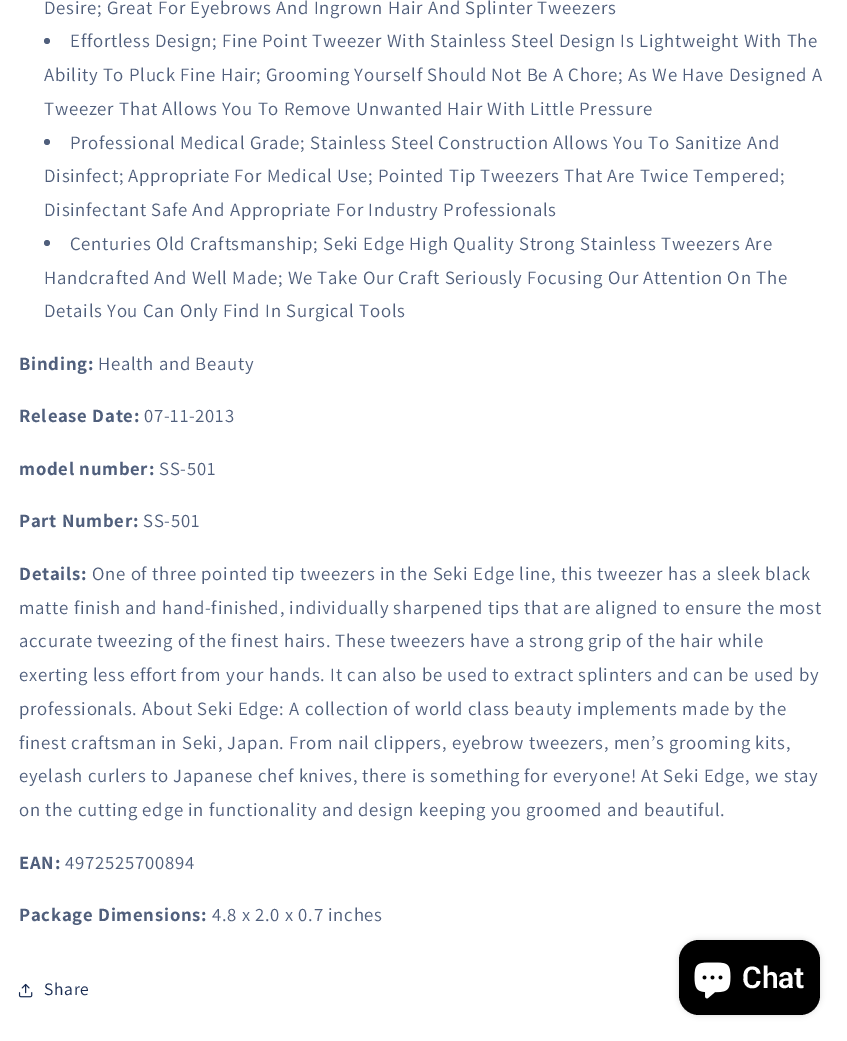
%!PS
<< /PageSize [847 1041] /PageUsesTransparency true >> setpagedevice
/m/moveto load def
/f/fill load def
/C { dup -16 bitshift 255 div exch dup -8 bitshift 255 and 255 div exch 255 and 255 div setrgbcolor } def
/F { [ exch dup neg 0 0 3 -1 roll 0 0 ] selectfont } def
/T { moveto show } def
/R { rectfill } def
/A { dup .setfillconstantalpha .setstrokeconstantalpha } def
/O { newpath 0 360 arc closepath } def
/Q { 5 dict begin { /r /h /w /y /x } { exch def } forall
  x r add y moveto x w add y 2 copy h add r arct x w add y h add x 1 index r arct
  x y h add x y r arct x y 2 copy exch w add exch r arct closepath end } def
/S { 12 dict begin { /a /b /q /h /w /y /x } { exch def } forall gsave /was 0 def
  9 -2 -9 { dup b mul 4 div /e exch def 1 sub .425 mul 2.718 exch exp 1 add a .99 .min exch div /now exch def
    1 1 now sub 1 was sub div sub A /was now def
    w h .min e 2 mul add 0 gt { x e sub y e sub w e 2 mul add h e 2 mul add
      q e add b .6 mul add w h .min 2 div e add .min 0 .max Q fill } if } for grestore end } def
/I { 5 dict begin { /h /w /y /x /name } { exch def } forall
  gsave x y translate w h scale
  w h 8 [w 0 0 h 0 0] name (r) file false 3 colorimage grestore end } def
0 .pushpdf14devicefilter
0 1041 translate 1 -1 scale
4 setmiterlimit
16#FFFFFF C
0 0 847 1041 R
/Assistant-Regular 18.75 F
16#505F7C C
44 14 m .75 0 (Desire; Great For Eyebrows And Ingrown Hair And Splinter Tweezers) ashow
47 41 3 O f
70 47 m .75 0 (Effortless Design; Fine Point Tweezer With Stainless Steel Design Is Lightweight With The) ashow
44 81 m .75 0 (Ability To Pluck Fine Hair; Grooming Yourself Should Not Be A Chore; As We Have Designed A) ashow
44 115 m .75 0 (Tweezer That Allows You To Remove Unwanted Hair With Little Pressure) ashow
47 142 3 O f
70 149 m .75 0 (Professional Medical Grade; Stainless Steel Construction Allows You To Sanitize And) ashow
44 182 m .75 0 (Disinfect; Appropriate For Medical Use; Pointed Tip Tweezers That Are Twice Tempered;) ashow
44 216 m .75 0 (Disinfectant Safe And Appropriate For Industry Professionals) ashow
47 243 3 O f
70 250 m .75 0 (Centuries Old Craftsmanship; Seki Edge High Quality Strong Stainless Tweezers Are) ashow
44 284 m .75 0 (Handcrafted And Well Made; We Take Our Craft Seriously Focusing Our Attention On The) ashow
44 317 m .75 0 (Details You Can Only Find In Surgical Tools) ashow
/Assistant-Bold 18.75 F
19 370 m .75 0 (Binding:) ashow
/Assistant-Regular 18.75 F
98 370 m .75 0 (Health and Beauty) ashow
/Assistant-Bold 18.75 F
19 422 m .75 0 (Release Date:) ashow
/Assistant-Regular 18.75 F
144 422 m .75 0 (07-11-2013) ashow
/Assistant-Bold 18.75 F
19 475 m .75 0 (model number:) ashow
/Assistant-Regular 18.75 F
159 475 m .75 0 (SS-501) ashow
/Assistant-Bold 18.75 F
19 527 m .75 0 (Part Number:) ashow
/Assistant-Regular 18.75 F
143 527 m .75 0 (SS-501) ashow
/Assistant-Bold 18.75 F
19 580 m .75 0 (Details:) ashow
/Assistant-Regular 18.75 F
92 580 m .75 0 (One of three pointed tip tweezers in the Seki Edge line, this tweezer has a sleek black) ashow
19 614 m .75 0 (matte finish and hand-finished, individually sharpened tips that are aligned to ensure the most) ashow
19 647 m .75 0 (accurate tweezing of the finest hairs. These tweezers have a strong grip of the hair while) ashow
19 681 m .75 0 (exerting less effort from your hands. It can also be used to extract splinters and can be used by) ashow
19 715 m .75 0 (professionals. About Seki Edge: A collection of world class beauty implements made by the) ashow
19 749 m .75 0 (finest craftsman in Seki, Japan. From nail clippers, eyebrow tweezers, men’s grooming kits,) ashow
19 782 m .75 0 (eyelash curlers to Japanese chef knives, there is something for everyone! At Seki Edge, we stay) ashow
19 816 m .75 0 (on the cutting edge in functionality and design keeping you groomed and beautiful.) ashow
/Assistant-Bold 18.75 F
19 869 m .75 0 (EAN:) ashow
/Assistant-Regular 18.75 F
65 869 m .75 0 (4972525700894) ashow
/Assistant-Bold 18.75 F
19 921 m .75 0 (Package Dimensions:) ashow
/Assistant-Regular 18.75 F
212 921 m .75 0 (4.8 x 2.0 x 0.7 inches) ashow
(1.rgb) 18 983 15 15 I
/Assistant-Regular 17.5 F
16#162950 C
44 995 m .75 0 (Share) ashow
16#000000 C
679 940 141 75 20 3 .15 S
679 940 141 75 20 Q f
(2.rgb) 694 962 37 37 I
/Roboto-SemiBold 30 F
16#FFFFFF C
(Chat) 742 988 T
.poppdf14devicefilter showpage
